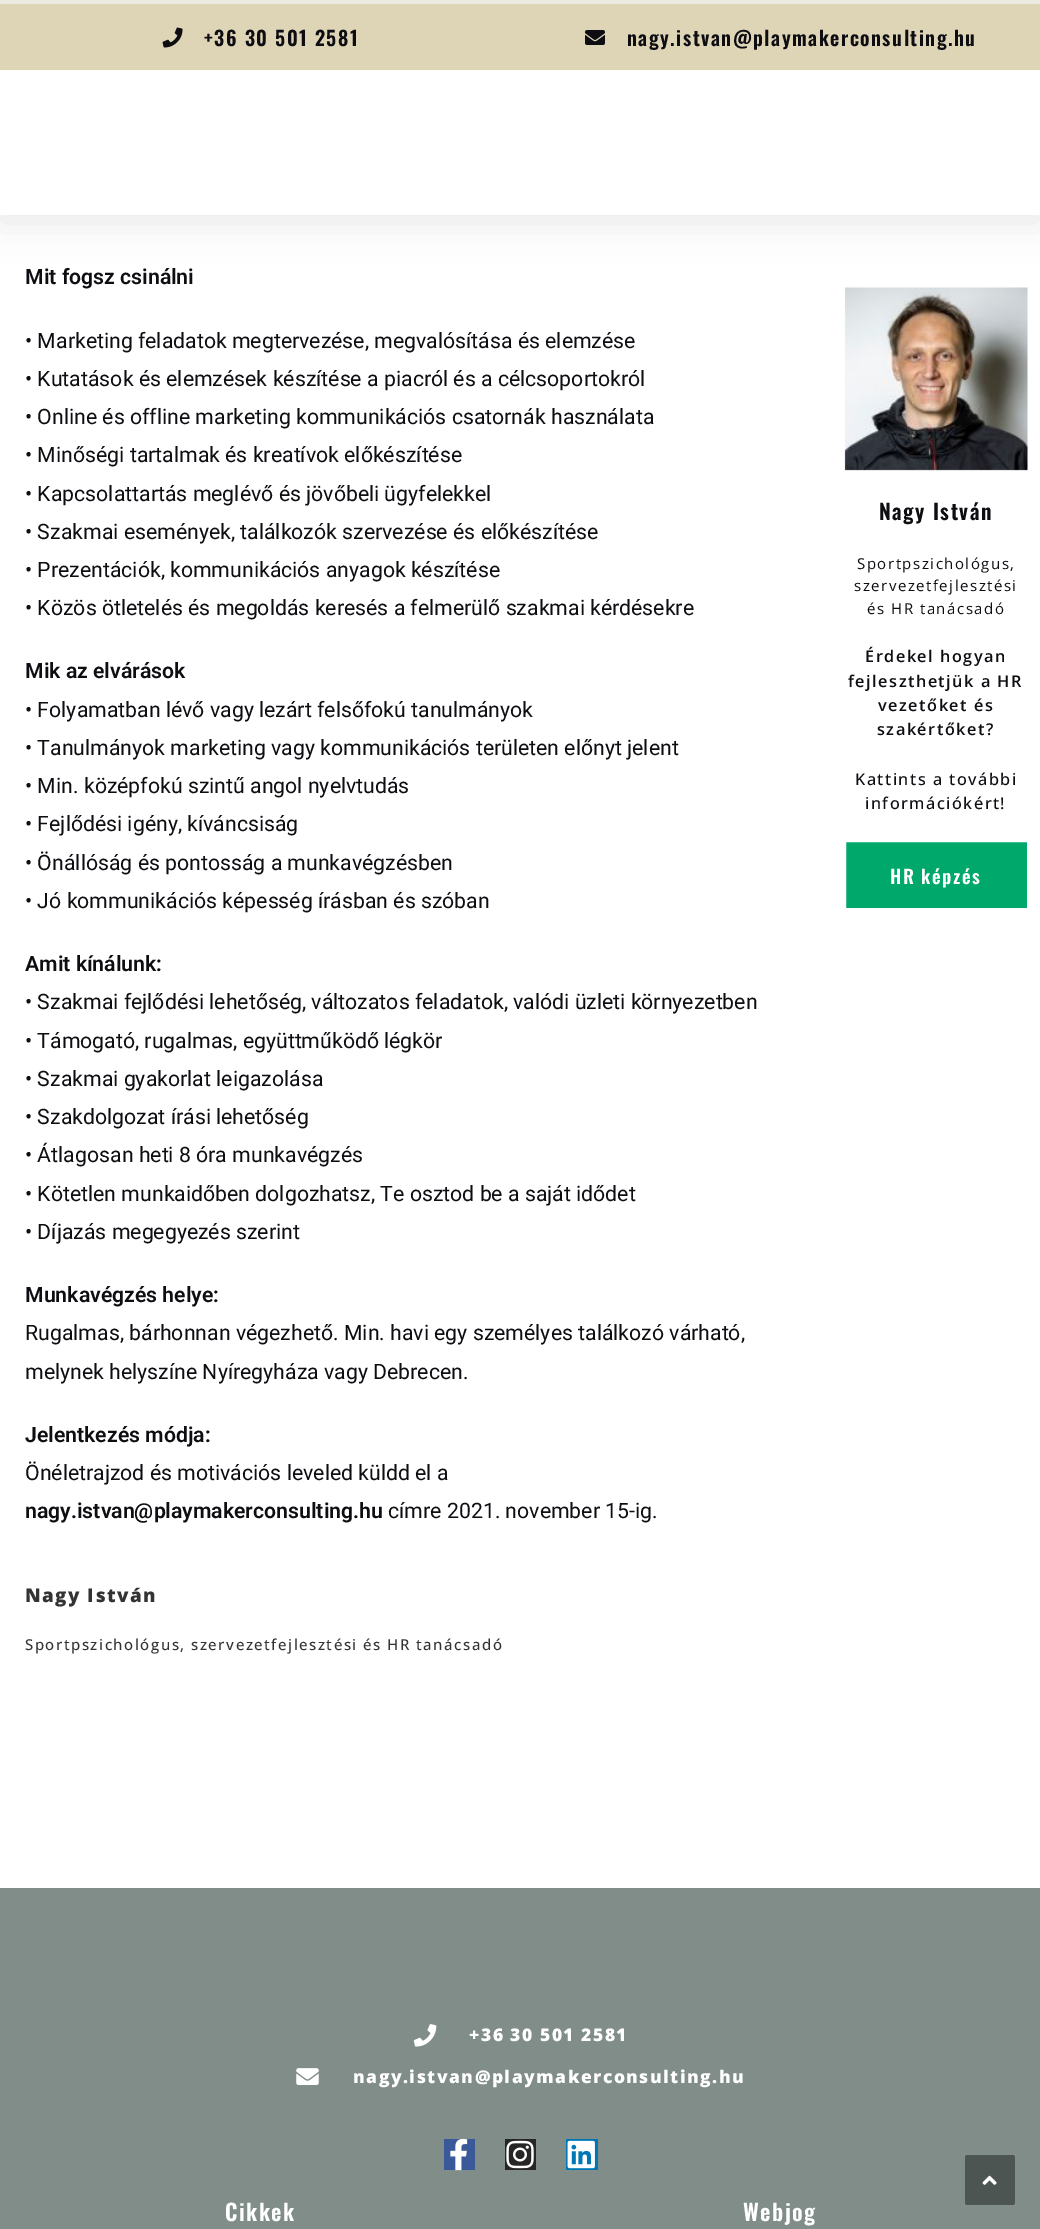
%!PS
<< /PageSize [1040 2229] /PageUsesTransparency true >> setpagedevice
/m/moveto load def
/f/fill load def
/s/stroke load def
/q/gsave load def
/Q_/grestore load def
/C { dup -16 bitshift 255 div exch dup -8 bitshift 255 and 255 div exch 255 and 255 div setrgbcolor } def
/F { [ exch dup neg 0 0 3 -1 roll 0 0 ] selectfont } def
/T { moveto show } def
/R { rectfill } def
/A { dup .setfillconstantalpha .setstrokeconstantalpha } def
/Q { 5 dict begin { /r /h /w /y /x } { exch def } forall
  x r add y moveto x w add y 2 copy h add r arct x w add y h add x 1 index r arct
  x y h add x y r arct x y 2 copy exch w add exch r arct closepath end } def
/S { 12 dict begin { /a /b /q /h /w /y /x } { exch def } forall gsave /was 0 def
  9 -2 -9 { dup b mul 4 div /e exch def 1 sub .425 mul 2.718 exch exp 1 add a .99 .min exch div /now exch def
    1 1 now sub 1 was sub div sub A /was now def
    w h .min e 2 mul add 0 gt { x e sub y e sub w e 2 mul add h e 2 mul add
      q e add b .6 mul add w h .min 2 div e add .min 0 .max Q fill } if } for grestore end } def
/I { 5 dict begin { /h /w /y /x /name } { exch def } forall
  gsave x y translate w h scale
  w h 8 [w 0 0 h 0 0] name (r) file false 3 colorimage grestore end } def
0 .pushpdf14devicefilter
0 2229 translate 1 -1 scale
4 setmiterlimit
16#FFFFFF C
0 0 1040 2229 R
16#000000 C
0 6 1040 215 0 19 .1 S
16#EAEAE3 C
0 0 1040 4 R
16#DED5B7 C
0 4 1040 66 R
(1.rgb) 162 27 21 21 I
/Oswald-SemiBold 20 F
16#0D0D12 C
204 46 m 1.5 0 (+36 30 501 2581) ashow
(2.rgb) 585 30 20 15 I
627 46 m 1.5 0 (nagy.istvan@playmakerconsulting.hu) ashow
16#FFFFFF C
0 70 1040 145 R
/Roboto-SemiBold 21.25 F
16#0D0D12 C
(Mit fogsz csinálni) 25 284 T
/Roboto-Regular 21.25 F
(• Marketing feladatok megtervezése, megvalósítása és elemzése) 25 348 T
(• Kutatások és elemzések készítése a piacról és a célcsoportokról) 25 386 T
(• Online és offline marketing kommunikációs csatornák használata) 25 424 T
(• Minőségi tartalmak és kreatívok előkészítése) 25 462 T
(• Kapcsolattartás meglévő és jövőbeli ügyfelekkel) 25 501 T
(• Szakmai események, találkozók szervezése és előkészítése) 25 539 T
(• Prezentációk, kommunikációs anyagok készítése) 25 577 T
(• Közös ötletelés és megoldás keresés a felmerülő szakmai kérdésekre) 25 615 T
/Roboto-SemiBold 21.25 F
(Mik az elvárások) 25 678 T
/Roboto-Regular 21.25 F
(• Folyamatban lévő vagy lezárt felsőfokú tanulmányok) 25 717 T
(• Tanulmányok marketing vagy kommunikációs területen előnyt jelent) 25 755 T
(• Min. középfokú szintű angol nyelvtudás) 25 793 T
(• Fejlődési igény, kíváncsiság) 25 831 T
(• Önállóság és pontosság a munkavégzésben) 25 870 T
(• Jó kommunikációs képesség írásban és szóban) 25 908 T
/Roboto-SemiBold 21.25 F
(Amit kínálunk:) 25 971 T
/Roboto-Regular 21.25 F
(• Szakmai fejlődési lehetőség, változatos feladatok, valódi üzleti környezetben) 25 1009 T
(• Támogató, rugalmas, együttműködő légkör) 25 1048 T
(• Szakmai gyakorlat leigazolása) 25 1086 T
(• Szakdolgozat írási lehetőség) 25 1124 T
(• Átlagosan heti 8 óra munkavégzés) 25 1162 T
(• Kötetlen munkaidőben dolgozhatsz, Te osztod be a saját idődet) 25 1201 T
(• Díjazás megegyezés szerint) 25 1239 T
/Roboto-SemiBold 21.25 F
(Munkavégzés helye:) 25 1302 T
/Roboto-Regular 21.25 F
(Rugalmas, bárhonnan végezhető. Min. havi egy személyes találkozó várható,) 25 1340 T
(melynek helyszíne Nyíregyháza vagy Debrecen.) 25 1379 T
/Roboto-SemiBold 21.25 F
(Jelentkezés módja:) 25 1442 T
/Roboto-Regular 21.25 F
(Önéletrajzod és motivációs leveled küldd el a) 25 1480 T
/Roboto-SemiBold 21.25 F
(nagy.istvan@playmakerconsulting.hu) 25 1518 T
/Roboto-Regular 21.25 F
(címre 2021. november 15-ig.) 388 1518 T
/OpenSans-ExtraBold 18.75 F
16#333333 C
25 1602 m 1.5 0 (Nagy István) ashow
/OpenSans-Medium 15 F
25 1650 m 1.5 0 (Sportpszichológus, szervezetfejlesztési és HR tanácsadó) ashow
(3.rgb) 844 287 184 184 I
/Oswald-SemiBold 21.25 F
16#0D0D12 C
879 520 m 1.5 0 (Nagy István) ashow
/OpenSans-Regular 15 F
857 569 m 1.5 0 (Sportpszichológus,) ashow
854 591 m 1.5 0 (szervezetfejlesztési) ashow
867 614 m 1.5 0 (és HR tanácsadó) ashow
/OpenSans-SemiBold 16.25 F
865 662 m 1.5 0 (Érdekel hogyan) ashow
848 687 m 1.5 0 (fejleszthetjük a HR) ashow
878 711 m 1.5 0 (vezetőket és) ashow
877 735 m 1.5 0 (szakértőket?) ashow
/OpenSans-Medium 16.25 F
855 785 m 1.5 0 (Kattints a további) ashow
865 809 m 1.5 0 (információkért!) ashow
16#00A86B C
845.5 841.5 182 67 .5 Q q f Q_
16#FFFFFF C
s
/Oswald-SemiBold 18.75 F
890 884 m 1.5 0 (HR képzés) ashow
16#808D88 C
0 1888 1040 341 R
(4.rgb) 413 2024 24 23 I
/OpenSans-ExtraBold 17.5 F
16#FFFFFF C
469 2041 m 1.5 0 (+36 30 501 2581) ashow
(5.rgb) 296 2068 23 17 I
353 2083 m 1.5 0 (nagy.istvan@playmakerconsulting.hu) ashow
16#3B5998 C
444 2139 31 31 R
(6.rgb) 450 2138 18 33 I
16#262626 C
505 2139 31 31 R
(7.rgb) 506 2140 28 29 I
16#0077B5 C
566 2139 32 31 R
(8.rgb) 567 2140 28 29 I
/Oswald-SemiBold 22.5 F
16#FFFFFF C
225 2221 m 1.5 0 (Cikkek) ashow
743 2221 m 1.5 0 (Webjog) ashow
16#4D5552 C
965 2155 50 50 2.5 Q f
(9.rgb) 982 2175 15 10 I
.poppdf14devicefilter showpage
